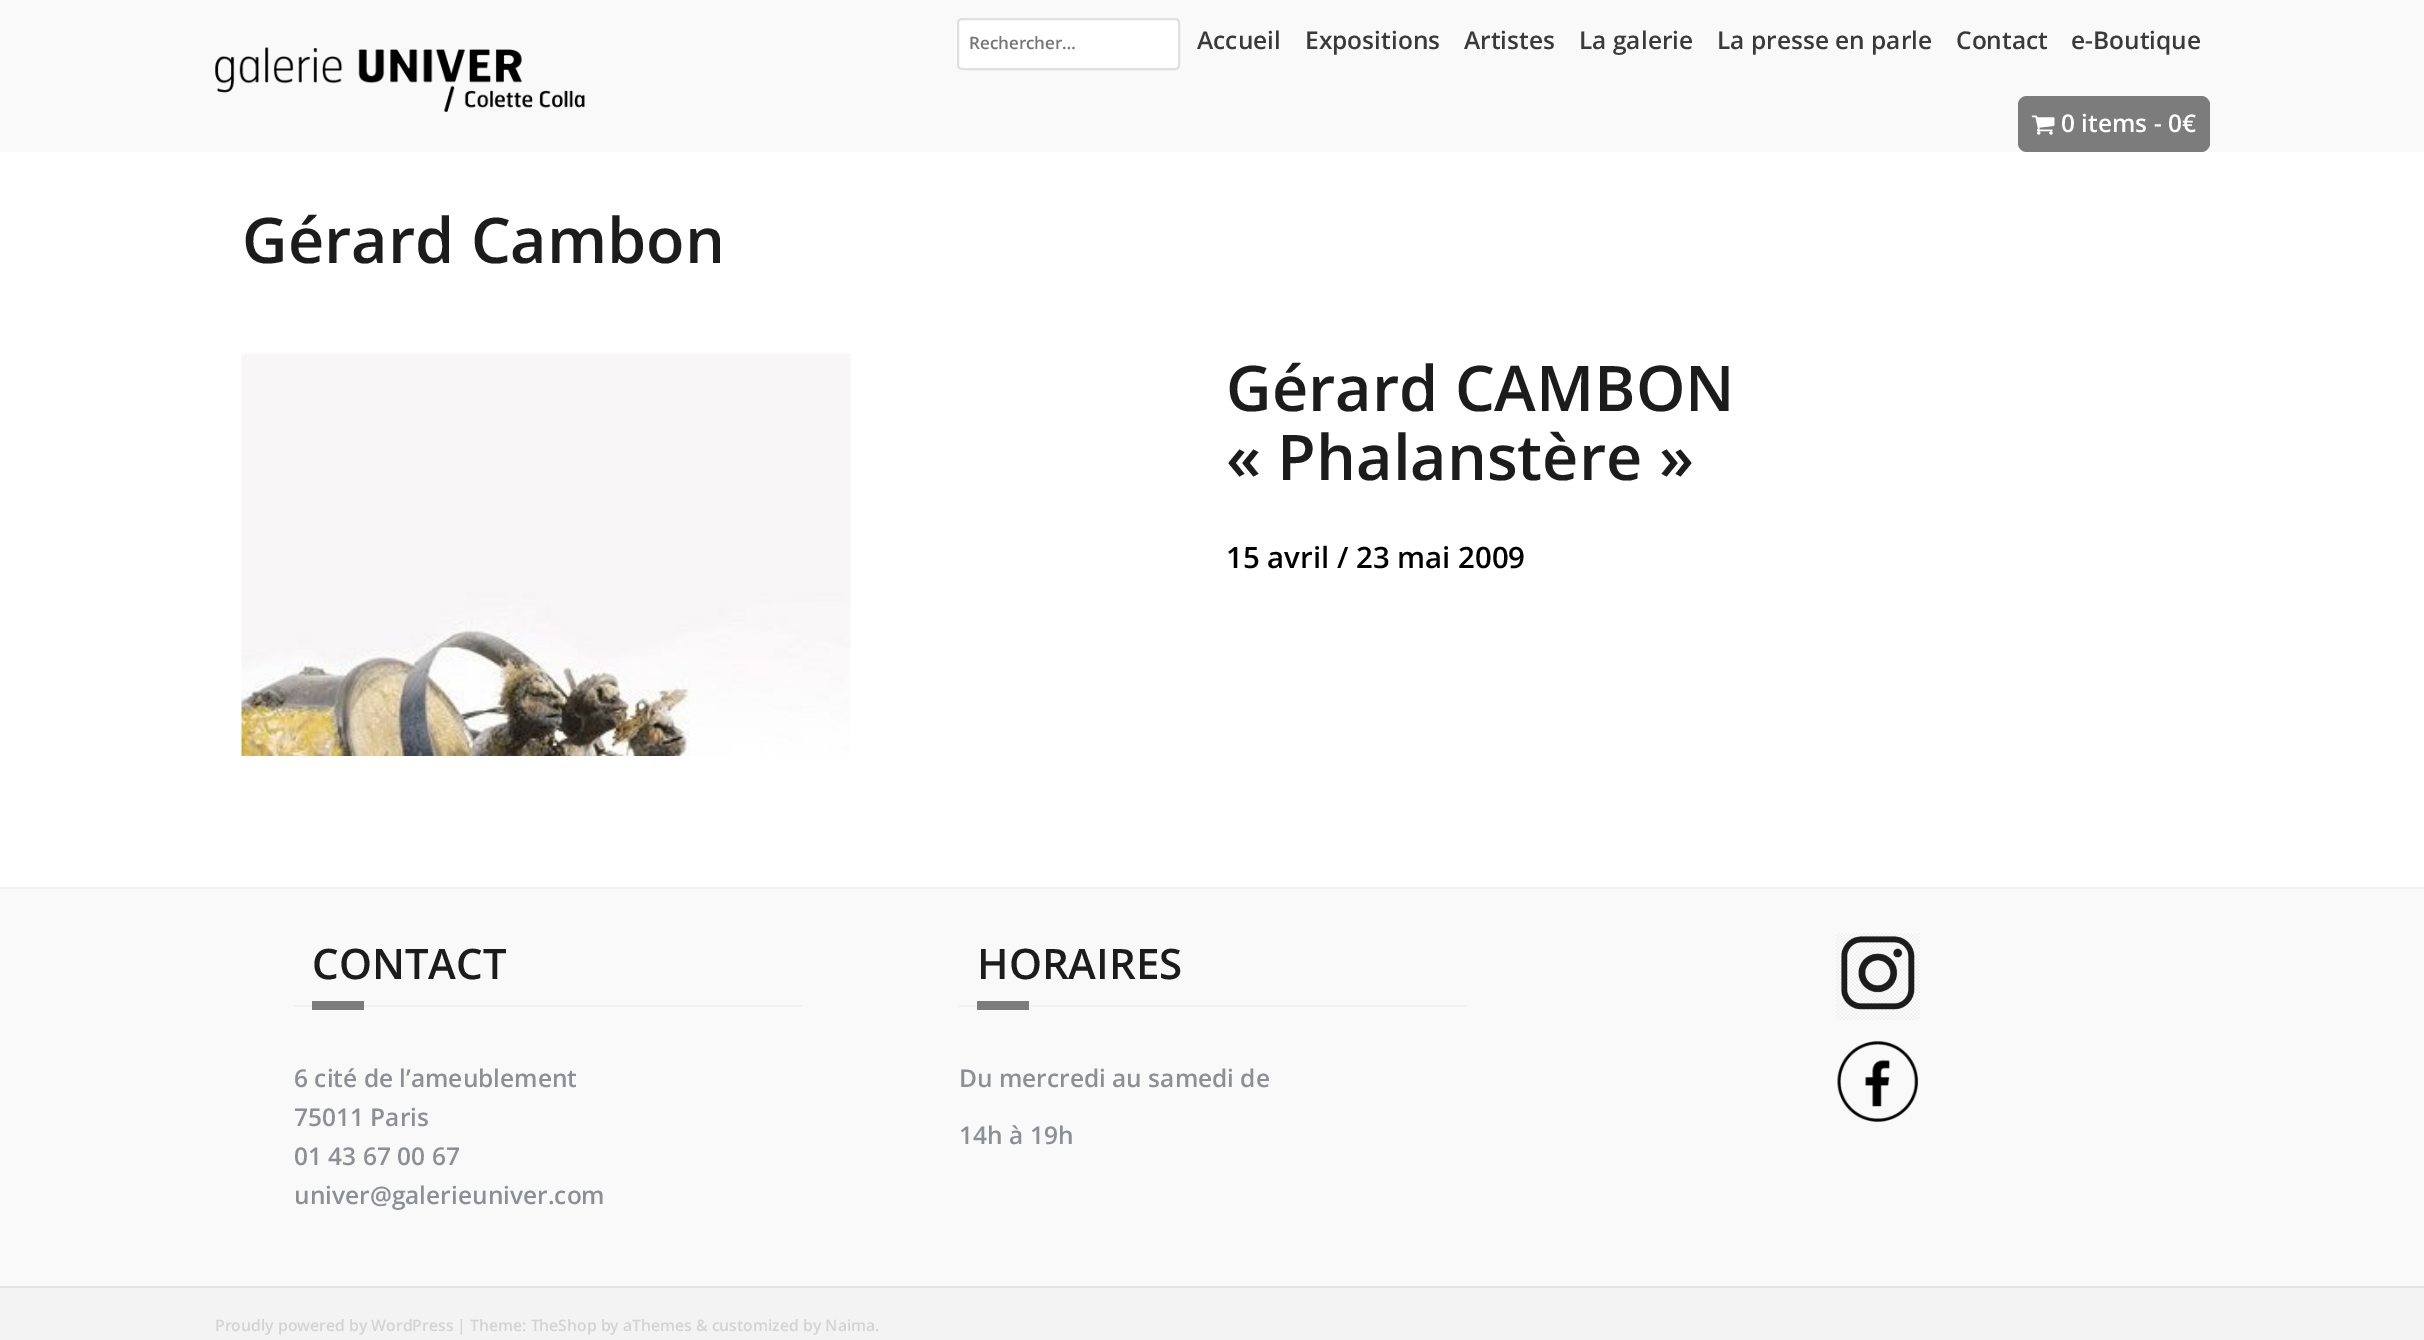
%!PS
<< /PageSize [2424 1340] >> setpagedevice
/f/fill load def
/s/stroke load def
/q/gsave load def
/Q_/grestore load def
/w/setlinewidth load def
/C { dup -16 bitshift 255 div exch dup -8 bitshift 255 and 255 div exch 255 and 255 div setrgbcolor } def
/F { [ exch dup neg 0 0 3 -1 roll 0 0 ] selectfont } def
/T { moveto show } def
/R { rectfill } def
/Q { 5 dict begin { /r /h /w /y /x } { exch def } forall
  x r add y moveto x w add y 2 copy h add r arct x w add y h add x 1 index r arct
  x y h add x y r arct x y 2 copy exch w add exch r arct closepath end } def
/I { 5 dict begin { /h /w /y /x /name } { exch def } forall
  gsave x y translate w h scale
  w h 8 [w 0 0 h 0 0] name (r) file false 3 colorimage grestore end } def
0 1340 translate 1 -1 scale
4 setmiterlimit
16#FFFFFF C
0 0 2424 1340 R
16#F9F9F9 C
0 0 2424 152 R
(1.rgb) 215 47 370 65 I
16#FFFFFF C
958 19 221 50 4 Q q f Q_
16#E0E0E0 C
2 w
s
/OpenSans-SemiBold 17 F
16#757575 C
(Rechercher…) 969 49 T
/OpenSans-SemiBold 24.5 F
16#3A3A3A C
(Accueil) 1197 49 T
(Expositions) 1305 49 T
(Artistes) 1464 49 T
(La galerie) 1579 49 T
(La presse en parle) 1717 49 T
(Contact) 1956 49 T
(e-Boutique) 2071 49 T
16#7C7C7C C
2018 96 192 56 9 Q f
(2.rgb) 2031 115 24 20 I
16#FFFFFF C
(0 items - 0€) 2061 132 T
/OpenSans-SemiBold 63 F
16#1C1C1C C
(Gérard Cambon) 242 263 T
(3.rgb) 241 353 610 403 I
(Gérard CAMBON) 1226 411 T
(« Phalanstère ») 1226 480 T
/OpenSans-SemiBold 29.4 F
16#000000 C
(15 avril / 23 mai 2009) 1226 568 T
16#F9F9F9 C
0 889 2424 397 R
16#F1F1F1 C
0 887 2424 2 R
294 1005 508 2 R
/OpenSans-SemiBold 42 F
16#1C1C1C C
(CONTACT) 312 979 T
16#7C7C7C C
312 1001 52 9 R
/OpenSans-SemiBold 24.5 F
16#8C8F94 C
(6 cité de l’ameublement) 294 1087 T
(75011 Paris) 294 1126 T
(01 43 67 00 67) 294 1165 T
(univer@galerieuniver.com) 294 1204 T
16#F1F1F1 C
959 1005 508 2 R
/OpenSans-SemiBold 42 F
16#1C1C1C C
(HORAIRES) 977 979 T
16#7C7C7C C
977 1001 52 9 R
/OpenSans-SemiBold 24.5 F
16#8C8F94 C
(Du mercredi au samedi de) 959 1087 T
(14h à 19h) 959 1144 T
(4.rgb) 1836 933 84 87 I
(5.rgb) 1837 1040 82 83 I
16#F3F3F3 C
0 1288 2424 52 R
16#E4E4E4 C
0 1286 2424 2 R
/OpenSans-SemiBold 15.75 F
16#D3D3D3 C
(Proudly powered by WordPress | Theme: TheShop by aThemes & customized by Naima.) 215 1331 T
showpage
